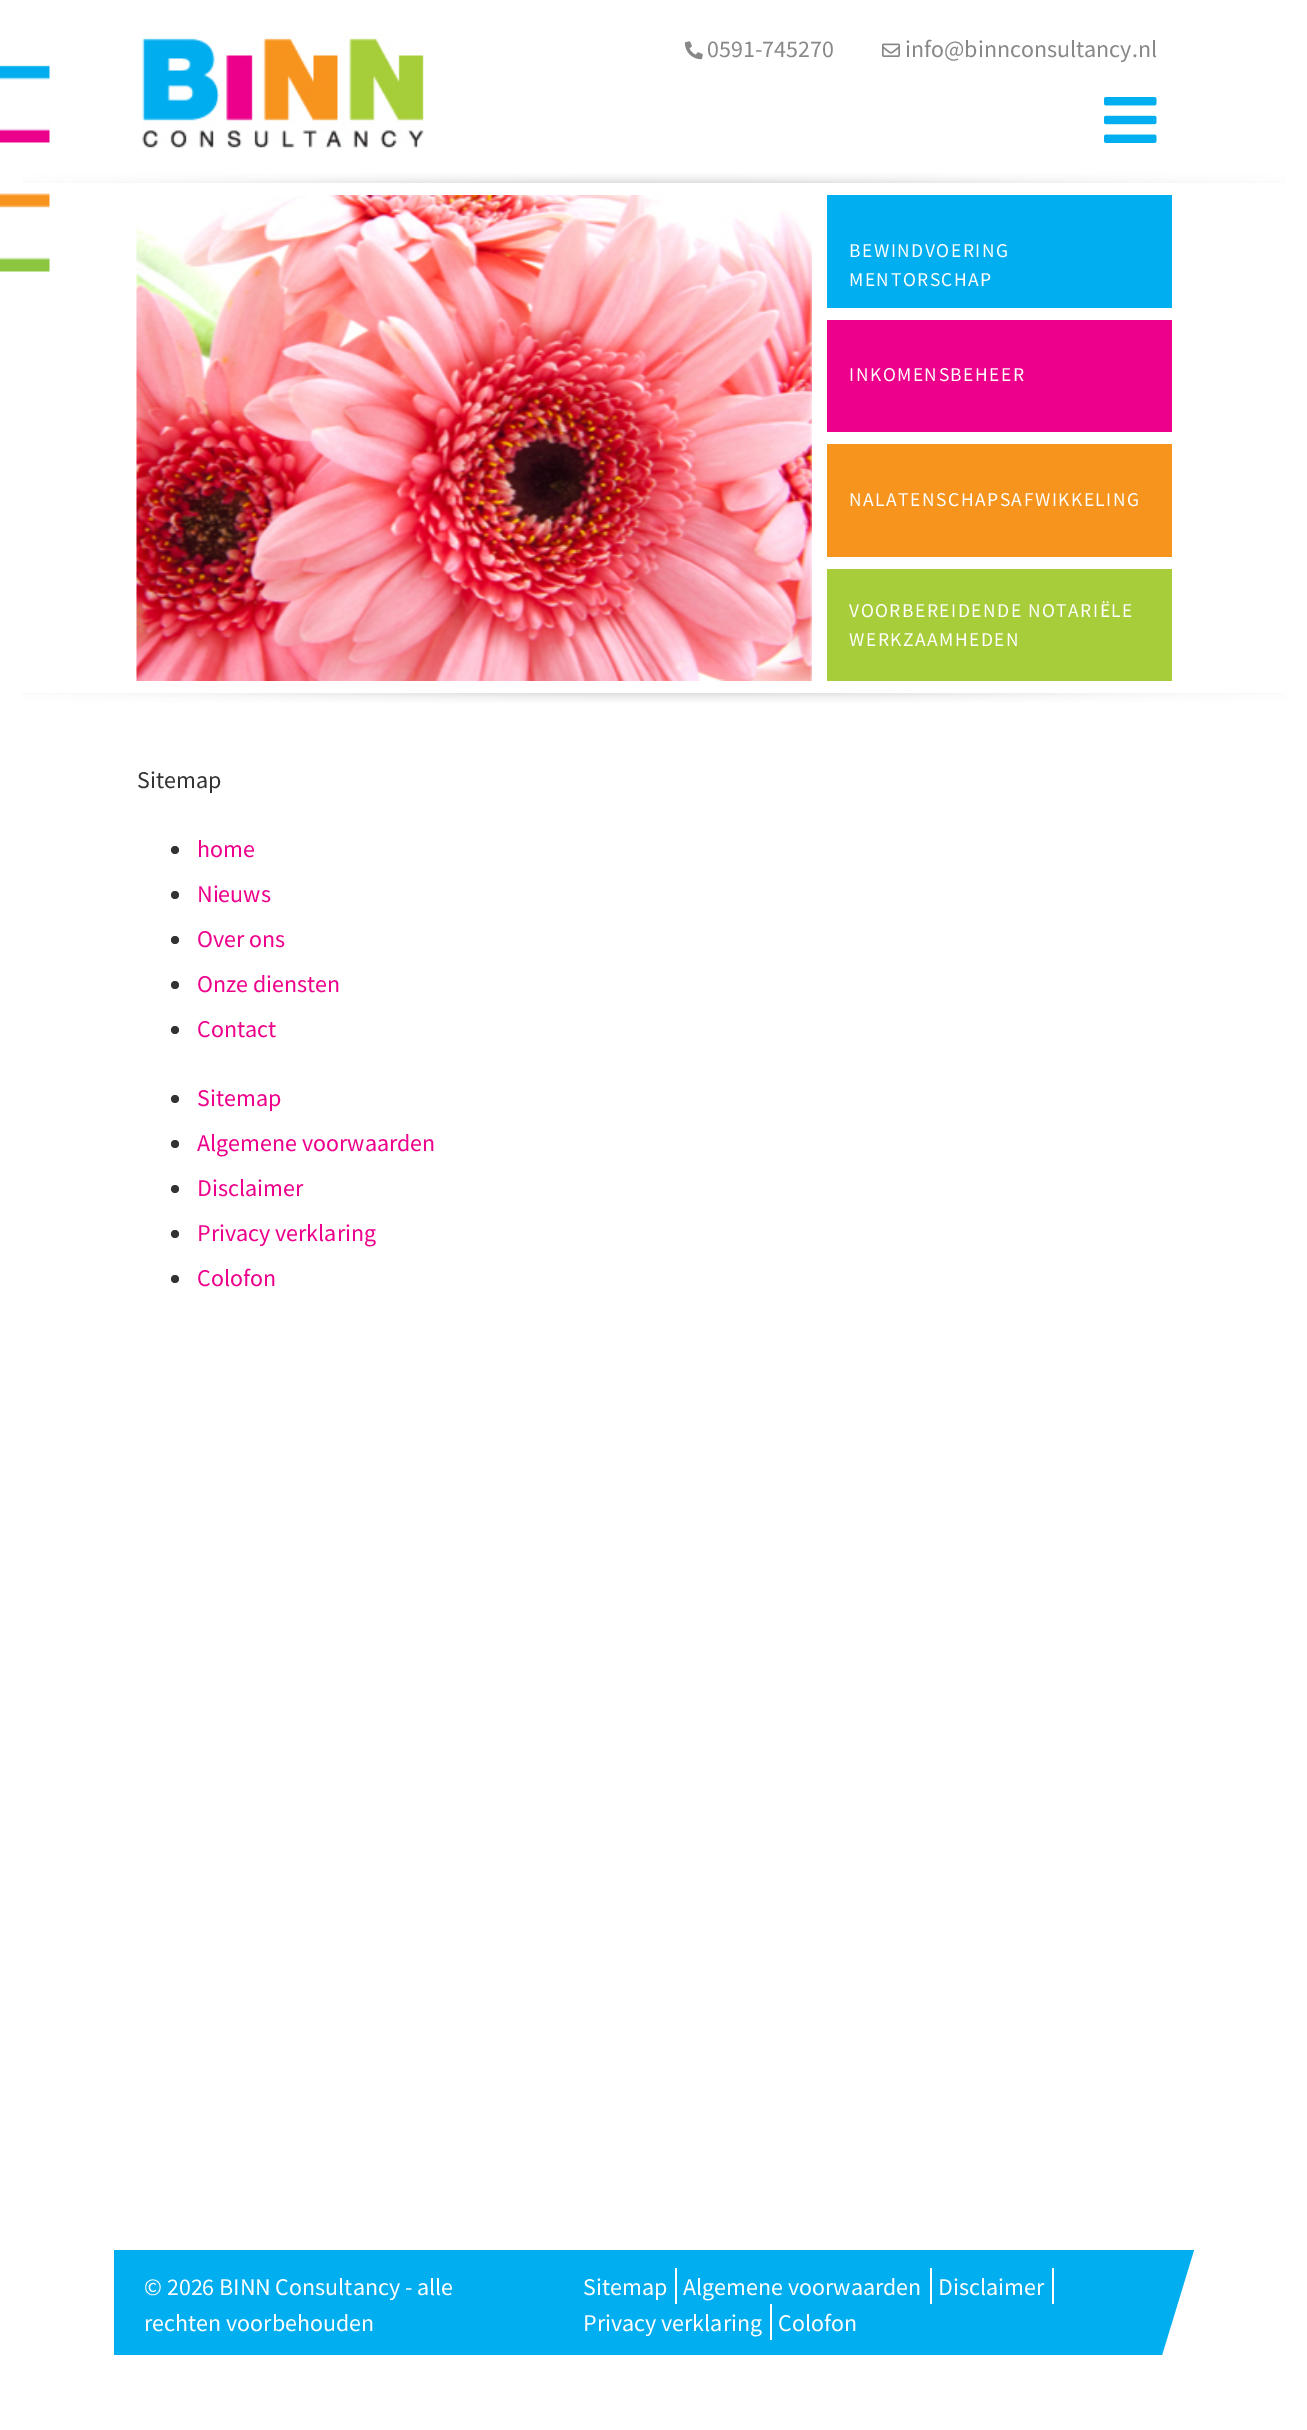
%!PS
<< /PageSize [1307 2430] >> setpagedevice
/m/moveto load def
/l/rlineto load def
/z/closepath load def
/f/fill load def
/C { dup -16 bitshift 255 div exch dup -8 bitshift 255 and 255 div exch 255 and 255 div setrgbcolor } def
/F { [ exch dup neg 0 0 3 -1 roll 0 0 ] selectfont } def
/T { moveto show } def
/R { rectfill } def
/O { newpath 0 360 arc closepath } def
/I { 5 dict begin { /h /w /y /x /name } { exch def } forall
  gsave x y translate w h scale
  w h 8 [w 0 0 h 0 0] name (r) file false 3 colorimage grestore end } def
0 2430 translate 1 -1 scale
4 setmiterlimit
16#FFFFFF C
0 0 1307 2430 R
(1.rgb) 0 65 50 207 I
(2.rgb) 142 33 282 115 I
(3.rgb) 684 41 19 19 I
/SourceSansPro-Regular 24 F
16#888888 C
(0591-745270) 707 57 T
(4.rgb) 882 43 18 14 I
(info@binnconsultancy.nl) 905 57 T
(5.rgb) 1104 97 53 46 I
(6.rgb) 22 173 1264 530 I
(7.rgb) 136 195 676 486 I
16#01AEF0 C
827 195 345 113 R
/SourceSansPro-Regular 19.5 F
16#FFFFFF C
849 257 m 1.5 0 (BEWINDVOERING) ashow
849 286 m 1.5 0 (MENTORSCHAP) ashow
16#ED008C C
827 320 345 112 R
16#FFFFFF C
849 381 m 1.5 0 (INKOMENSBEHEER) ashow
16#F7941D C
827 444 345 113 R
16#FFFFFF C
849 506 m 1.5 0 (NALATENSCHAPSAFWIKKELING) ashow
16#A7CD3A C
827 569 345 112 R
16#FFFFFF C
849 617 m 1.5 0 (VOORBEREIDENDE NOTARIËLE) ashow
849 646 m 1.5 0 (WERKZAAMHEDEN) ashow
/SourceSansPro-Regular 24 F
16#333333 C
(Sitemap) 137 788 T
175 850 4 O f
16#ED008C C
(home) 197 857 T
16#333333 C
175 895 4 O f
16#ED008C C
(Nieuws) 197 902 T
16#333333 C
175 940 4 O f
16#ED008C C
(Over ons) 197 947 T
16#333333 C
175 985 4 O f
16#ED008C C
(Onze diensten) 197 992 T
16#333333 C
175 1030 4 O f
16#ED008C C
(Contact) 197 1037 T
16#333333 C
175 1099 4 O f
16#ED008C C
(Sitemap) 197 1106 T
16#333333 C
175 1144 4 O f
16#ED008C C
(Algemene voorwaarden) 197 1151 T
16#333333 C
175 1189 4 O f
16#ED008C C
(Disclaimer) 197 1196 T
16#333333 C
175 1234 4 O f
16#ED008C C
(Privacy verklaring) 197 1241 T
16#333333 C
175 1279 4 O f
16#ED008C C
(Colofon) 197 1286 T
16#01AEF0 C
114 2250 m 0 105 l 1048 0 l 32 -105 l z f
16#FFFFFF C
(© 2026 BINN Consultancy - alle) 144 2295 T
(rechten voorbehouden) 144 2331 T
675 2268 2 36 R
(Sitemap) 583 2295 T
930 2268 2 36 R
(Algemene voorwaarden) 683 2295 T
1052 2268 2 36 R
(Disclaimer) 938 2295 T
770 2304 2 36 R
(Privacy verklaring) 583 2331 T
(Colofon) 778 2331 T
showpage
